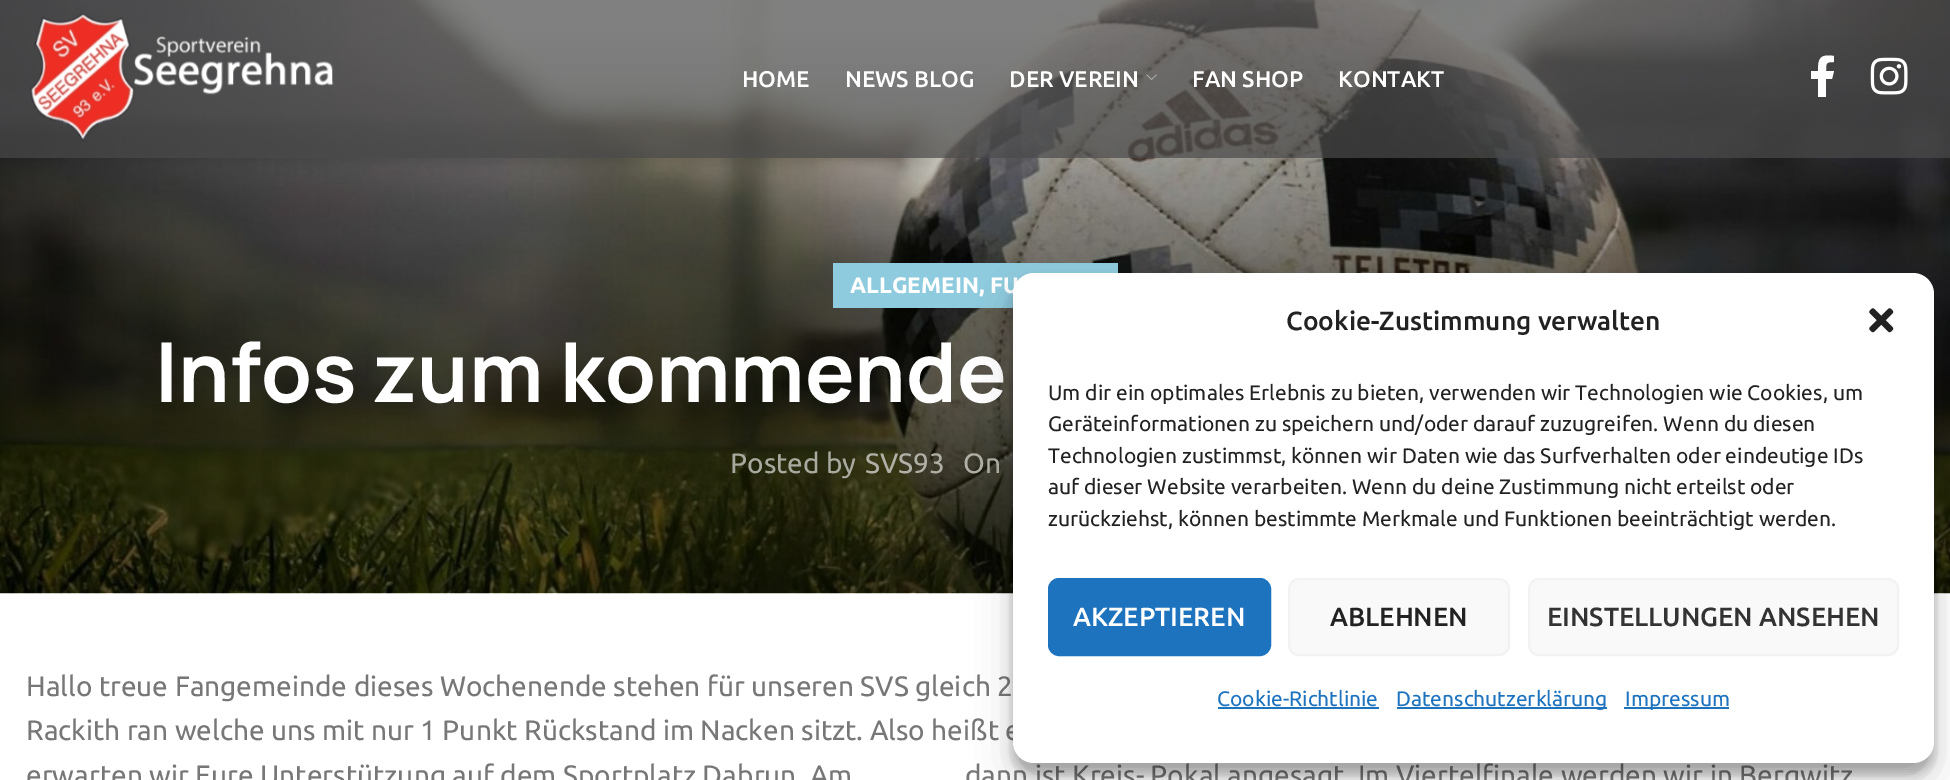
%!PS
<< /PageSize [1950 780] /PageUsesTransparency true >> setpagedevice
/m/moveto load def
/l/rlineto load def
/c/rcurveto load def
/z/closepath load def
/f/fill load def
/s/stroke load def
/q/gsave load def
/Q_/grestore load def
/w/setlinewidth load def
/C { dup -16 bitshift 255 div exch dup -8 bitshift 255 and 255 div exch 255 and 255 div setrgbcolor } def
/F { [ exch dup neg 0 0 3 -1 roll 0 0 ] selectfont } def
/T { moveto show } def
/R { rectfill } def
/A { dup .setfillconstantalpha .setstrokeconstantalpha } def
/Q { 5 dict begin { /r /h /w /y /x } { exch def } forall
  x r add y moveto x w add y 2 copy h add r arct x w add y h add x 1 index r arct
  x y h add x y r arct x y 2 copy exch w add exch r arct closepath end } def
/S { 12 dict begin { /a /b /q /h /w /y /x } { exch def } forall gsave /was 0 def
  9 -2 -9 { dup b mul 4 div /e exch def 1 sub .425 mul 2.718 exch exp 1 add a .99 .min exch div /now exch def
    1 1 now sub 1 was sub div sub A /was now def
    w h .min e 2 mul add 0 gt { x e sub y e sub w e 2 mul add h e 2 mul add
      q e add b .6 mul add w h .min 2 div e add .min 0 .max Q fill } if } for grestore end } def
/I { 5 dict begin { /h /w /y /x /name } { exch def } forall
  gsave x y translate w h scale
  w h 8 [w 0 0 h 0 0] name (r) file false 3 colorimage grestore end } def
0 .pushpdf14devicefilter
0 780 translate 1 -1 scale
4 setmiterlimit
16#FFFFFF C
0 0 1950 780 R
(4.rgb) 0 0 1950 594 I
0.7 A
16#4A4A4A C
0 0 1950 158 R
1 A
(1.rgb) 30 13 304 129 I
/Ubuntu-Medium 22.75 F
16#FFFFFF C
(HOME) 742 87 T
(NEWS BLOG) 845 87 T
(DER VEREIN) 1009 87 T
(2.rgb) 1146 74 11 6 I
(FAN SHOP) 1192 87 T
(KONTAKT) 1338 87 T
1832 79 m 2 -8 l -8 0 l 0 -8 0 -9 8 -9 c 0 -6 l -14 -2 -16 2 -16 15 c -7 0 l 0 8 l 7 0 l 0 18 l 8 0 l 0 -18 l z f
(3.rgb) 1870 57 38 38 I
16#8ECBDE C
833 263 285 45 R
/Ubuntu-Bold 22.5 F
16#FFFFFF C
(ALLGEMEIN, FU) 850 293 T
/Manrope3-Bold 79.25 F
(Infos zum kommende) 155 402 T
/Ubuntu-Regular 28 F
16#A9AA9F C
(Posted by) 730 473 T
16#B0B0A6 C
(SVS93) 865 473 T
(On) 963 473 T
16#777777 C
(Hallo treue Fangemeinde dieses Wochenende stehen für unseren SVS gleich 2) 26 696 T
(Rackith ran welche uns mit nur 1 Punkt Rückstand im Nacken sitzt. Also heißt e) 26 740 T
(erwarten wir Eure Unterstützung auf dem Sportplatz Dabrun. Am) 26 785 T
(dann ist Kreis- Pokal angesagt. Im Viertelfinale werden wir in Bergwitz) 965 785 T
16#000000 C
1013 284 921 490 21 5 .23 S
1013 291 921 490 21 17.5 .19 S
16#FFFFFF C
1013 273 921 490 21 Q f
/Ubuntu-Medium 26.25 F
16#222222 C
(Cookie-Zustimmung verwalten) 1286 330 T
(5.rgb) 1869 308 25 25 I
/Ubuntu-Regular 21 F
(Um dir ein optimales Erlebnis zu bieten, verwenden wir Technologien wie Cookies, um) 1048 400 T
(Geräteinformationen zu speichern und/oder darauf zuzugreifen. Wenn du diesen) 1048 431 T
(Technologien zustimmst, können wir Daten wie das Surfverhalten oder eindeutige IDs) 1048 463 T
(auf dieser Website verarbeiten. Wenn du deine Zustimmung nicht erteilst oder) 1048 494 T
(zurückziehst, können bestimmte Merkmale und Funktionen beeinträchtigt werden.) 1048 526 T
16#1E73BE C
1049 579 221 76 10 Q q f Q_
2 w
s
/Ubuntu-Medium 26.25 F
16#FFFFFF C
(AKZEPTIEREN) 1073 626 T
16#F9F9F9 C
1289 579 220 76 10 Q q f Q_
16#F2F2F2 C
s
16#222222 C
(ABLEHNEN) 1330 626 T
16#F9F9F9 C
1529 579 369 76 10 Q q f Q_
16#F2F2F2 C
s
16#333333 C
(EINSTELLUNGEN ANSEHEN) 1547 626 T
/Ubuntu-Regular 21 F
16#1E73BE C
(Cookie-Richtlinie) 1217 706 T
1218 707 161 2 R
1397 707 210 2 R
(Datenschutzerklärung) 1396 706 T
1624 707 105 2 R
(Impressum) 1625 706 T
.poppdf14devicefilter showpage
